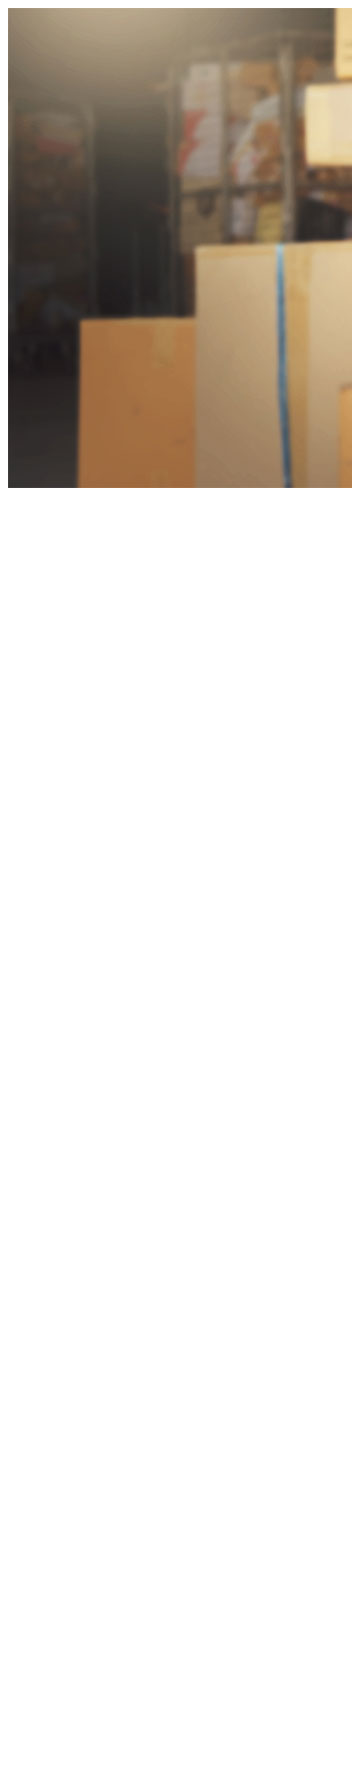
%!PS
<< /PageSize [352 1773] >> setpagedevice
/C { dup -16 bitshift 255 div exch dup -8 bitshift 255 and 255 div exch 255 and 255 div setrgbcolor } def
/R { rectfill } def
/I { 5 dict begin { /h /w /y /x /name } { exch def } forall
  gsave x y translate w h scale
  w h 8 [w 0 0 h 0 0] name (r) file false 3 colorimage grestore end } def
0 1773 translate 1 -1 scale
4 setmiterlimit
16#FFFFFF C
0 0 352 1773 R
(1.rgb) 8 8 344 480 I
showpage
